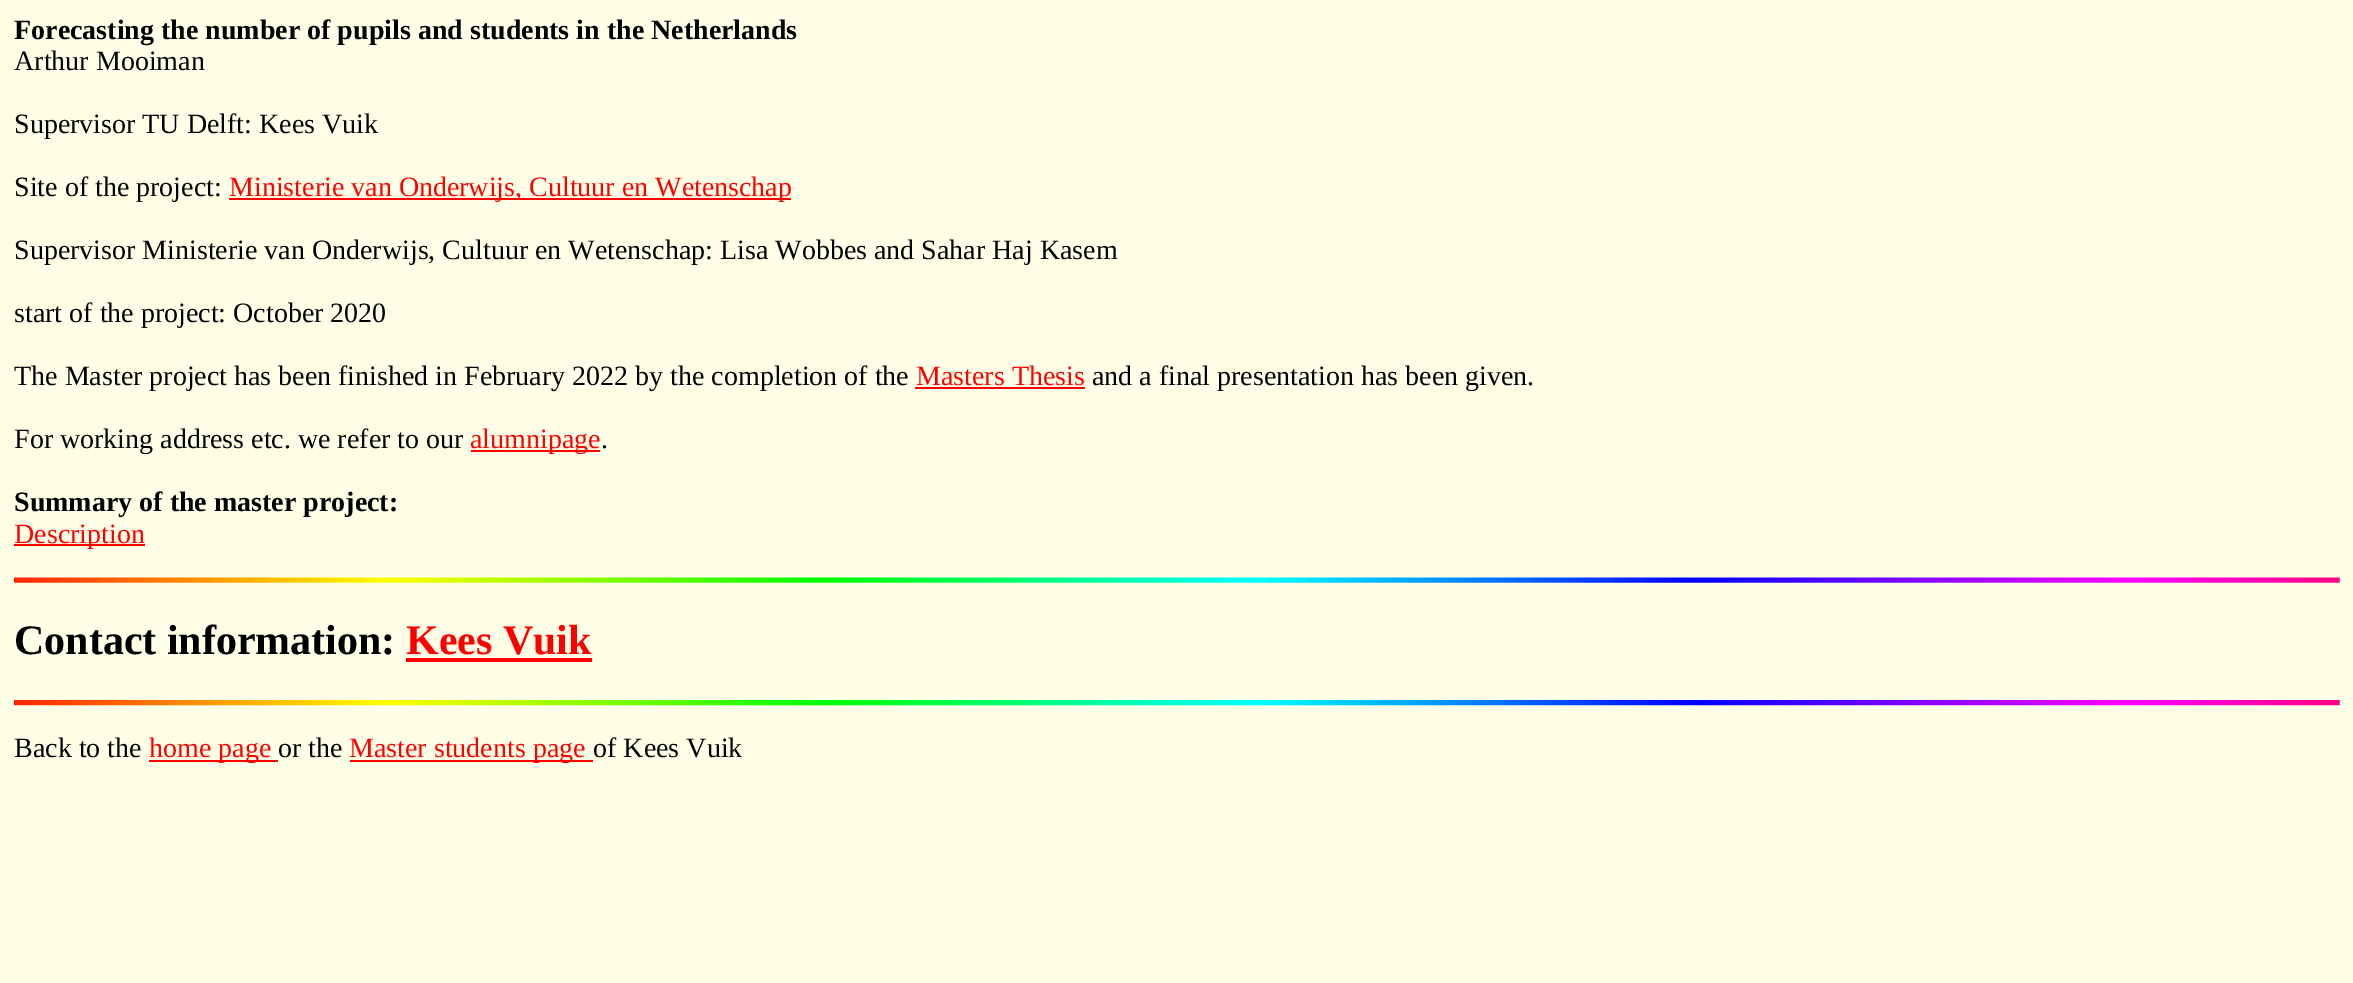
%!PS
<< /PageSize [2353 983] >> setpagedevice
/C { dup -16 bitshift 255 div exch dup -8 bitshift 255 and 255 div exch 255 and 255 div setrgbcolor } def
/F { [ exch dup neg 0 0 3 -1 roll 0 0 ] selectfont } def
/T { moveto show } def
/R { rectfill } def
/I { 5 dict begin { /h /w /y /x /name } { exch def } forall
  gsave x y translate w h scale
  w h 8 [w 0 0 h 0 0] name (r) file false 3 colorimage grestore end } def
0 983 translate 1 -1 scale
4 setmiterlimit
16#FFFFE8 C
0 0 2353 983 R
/LiberationSerif-Bold 28 F
16#000000 C
(Forecasting the number of pupils and students in the Netherlands) 14 39 T
/LiberationSerif-Regular 28 F
(Arthur Mooiman) 14 70 T
(Supervisor TU Delft: Kees Vuik) 14 133 T
(Site of the project:) 14 196 T
16#FF0000 C
229 198 562 2 R
(Ministerie van Onderwijs, Cultuur en Wetenschap) 229 196 T
16#000000 C
(Supervisor Ministerie van Onderwijs, Cultuur en Wetenschap: Lisa Wobbes and Sahar Haj Kasem) 14 259 T
(start of the project: October 2020) 14 322 T
(The Master project has been finished in February 2022 by the completion of the) 14 385 T
16#FF0000 C
(Masters Thesis) 916 385 T
915 387 170 2 R
16#000000 C
(and a final presentation has been given.) 1092 385 T
(For working address etc. we refer to our) 14 448 T
16#FF0000 C
471 450 129 2 R
(alumnipage) 470 448 T
16#000000 C
(.) 601 448 T
/LiberationSerif-Bold 28 F
(Summary of the master project:) 14 511 T
16#FF0000 C
14 544 131 2 R
/LiberationSerif-Regular 28 F
(Description) 14 543 T
(1.rgb) 14 577 2326 6 I
/LiberationSerif-Bold 42 F
16#000000 C
(Contact information:) 14 654 T
16#FF0000 C
(Kees Vuik) 406 654 T
406 658 186 4 R
(2.rgb) 14 700 2326 6 I
/LiberationSerif-Regular 28 F
16#000000 C
(Back to the) 14 757 T
16#FF0000 C
149 760 129 2 R
(home page) 149 757 T
16#000000 C
(or the) 278 757 T
16#FF0000 C
350 760 243 2 R
(Master students page) 349 757 T
16#000000 C
(of Kees Vuik) 593 757 T
showpage
